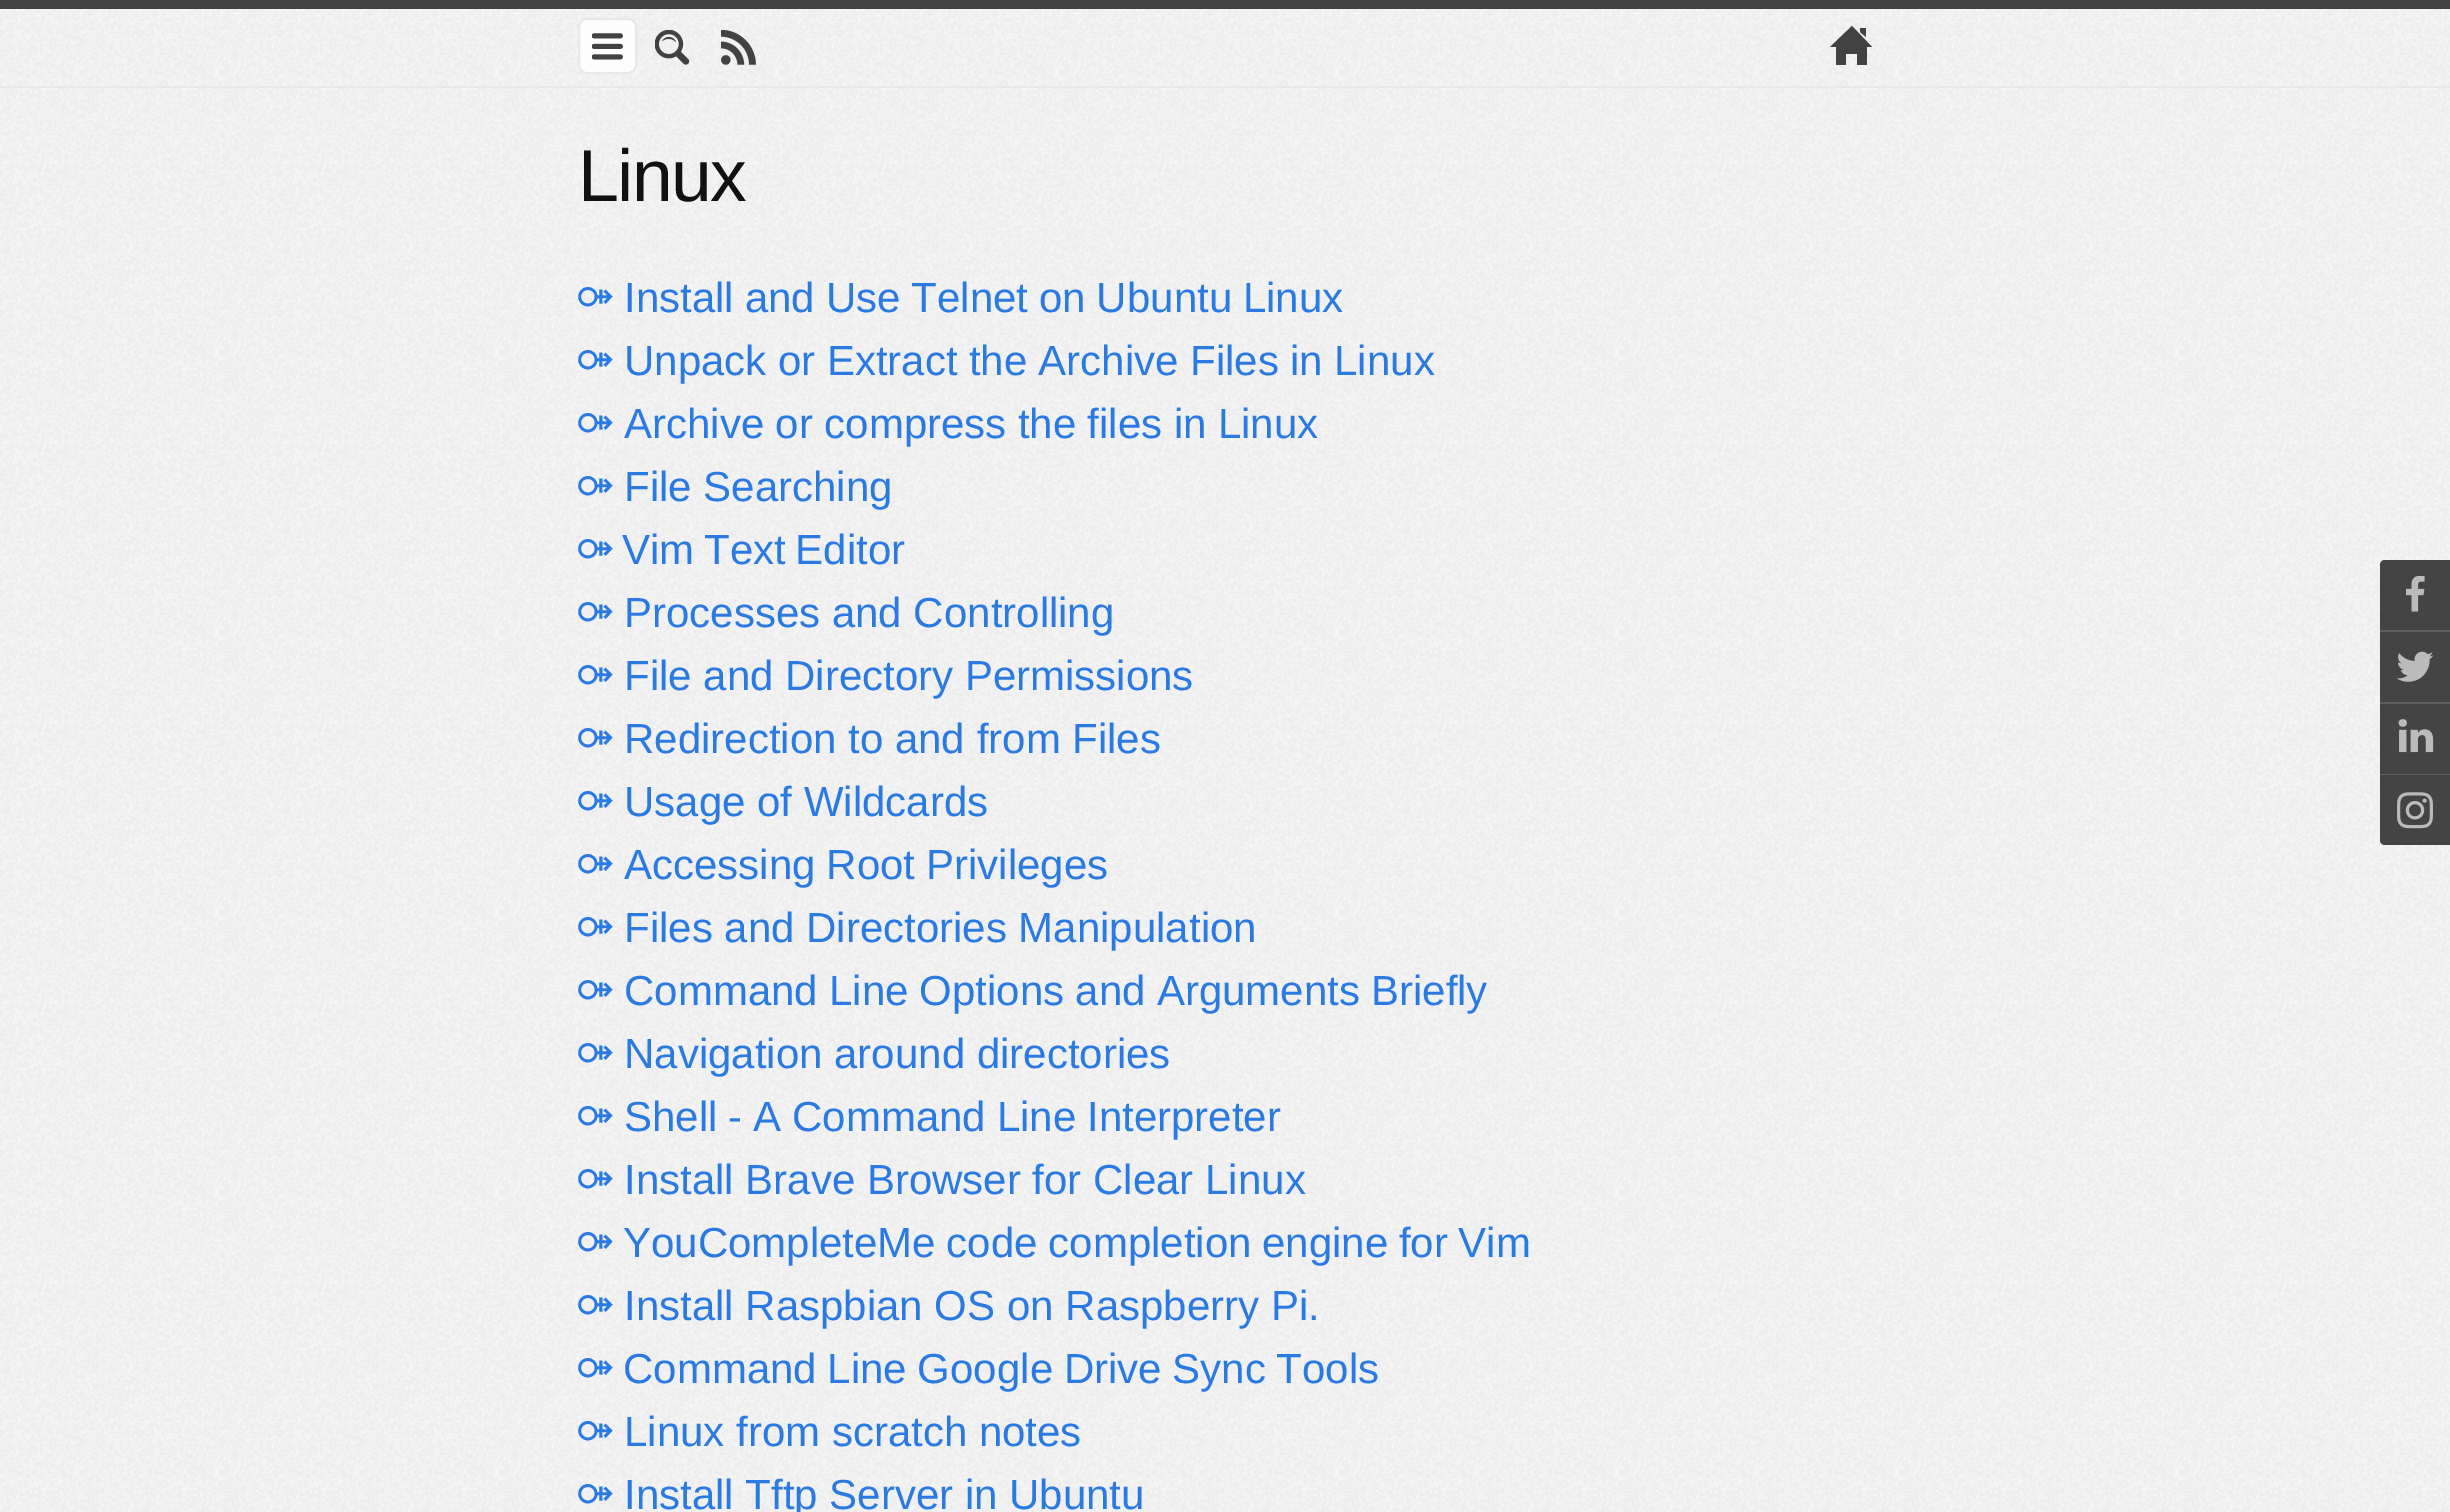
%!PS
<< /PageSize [2450 1512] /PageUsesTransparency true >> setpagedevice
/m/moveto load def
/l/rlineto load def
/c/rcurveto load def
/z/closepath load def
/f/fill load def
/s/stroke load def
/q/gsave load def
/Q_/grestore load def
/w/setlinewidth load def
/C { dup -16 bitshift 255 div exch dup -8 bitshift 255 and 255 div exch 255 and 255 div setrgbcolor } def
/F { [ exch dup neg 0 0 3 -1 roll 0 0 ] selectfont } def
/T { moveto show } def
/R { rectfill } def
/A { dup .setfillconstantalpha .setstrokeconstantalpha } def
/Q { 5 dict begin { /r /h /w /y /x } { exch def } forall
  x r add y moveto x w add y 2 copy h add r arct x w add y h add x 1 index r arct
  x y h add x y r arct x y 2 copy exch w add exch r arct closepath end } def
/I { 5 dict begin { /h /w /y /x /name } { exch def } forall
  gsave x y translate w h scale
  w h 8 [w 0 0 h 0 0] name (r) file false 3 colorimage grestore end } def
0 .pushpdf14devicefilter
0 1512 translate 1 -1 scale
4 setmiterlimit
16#FFFFFF C
0 0 2450 1512 R
(1.rgb) 0 9 2450 1503 I
16#424242 C
0 0 2450 9 R
16#E8E8E8 C
0 86 2450 2 R
16#FDFDFD C
579 19 57 54 8 Q q f Q_
16#E8E8E8 C
2 w
s
(2.rgb) 592 33 31 27 I
(3.rgb) 655 30 35 35 I
(4.rgb) 721 30 35 35 I
16#424242 C
1867 47 m 0 18 l -10 0 l 0 -11 l -11 0 l 0 11 l -10 0 l 0 -18 l -6 0 l 22 -21 l 20 21 l z 1866 37 m 0 -9 l -6 0 l 0 4 l z f
/LiberationSans-Regular 73.5 F
16#111111 C
578 201 m -1.75 0 (Linux) ashow
/DejaVuSans-Regular 42 F
16#2A7AE2 C
(⚩) 578 312 T
/LiberationSans-Regular 42 F
624 312 m -.75 0 32 (Install and Use Telnet on Ubuntu Linux) widthshow
/DejaVuSans-Regular 42 F
(⚩) 578 375 T
/LiberationSans-Regular 42 F
624 375 m -.25 0 32 (Unpack or Extract the Archive Files in Linux) widthshow
/DejaVuSans-Regular 42 F
(⚩) 578 438 T
/LiberationSans-Regular 42 F
624 438 m -.25 0 32 (Archive or compress the files in Linux) widthshow
/DejaVuSans-Regular 42 F
(⚩) 578 501 T
/LiberationSans-Regular 42 F
(File Searching) 624 501 T
/DejaVuSans-Regular 42 F
(⚩) 578 564 T
/LiberationSans-Regular 42 F
622 564 m -2 0 32 (Vim Text Editor) widthshow
/DejaVuSans-Regular 42 F
(⚩) 578 627 T
/LiberationSans-Regular 42 F
(Processes and Controlling) 624 627 T
/DejaVuSans-Regular 42 F
(⚩) 578 690 T
/LiberationSans-Regular 42 F
(File and Directory Permissions) 624 690 T
/DejaVuSans-Regular 42 F
(⚩) 578 753 T
/LiberationSans-Regular 42 F
(Redirection to and from Files) 624 753 T
/DejaVuSans-Regular 42 F
(⚩) 578 816 T
/LiberationSans-Regular 42 F
(Usage of Wildcards) 624 816 T
/DejaVuSans-Regular 42 F
(⚩) 578 879 T
/LiberationSans-Regular 42 F
624 879 m -.75 0 32 (Accessing Root Privileges) widthshow
/DejaVuSans-Regular 42 F
(⚩) 578 942 T
/LiberationSans-Regular 42 F
(Files and Directories Manipulation) 624 942 T
/DejaVuSans-Regular 42 F
(⚩) 578 1005 T
/LiberationSans-Regular 42 F
624 1005 m -.5 0 32 (Command Line Options and Arguments Briefly) widthshow
/DejaVuSans-Regular 42 F
(⚩) 578 1068 T
/LiberationSans-Regular 42 F
(Navigation around directories) 624 1068 T
/DejaVuSans-Regular 42 F
(⚩) 578 1131 T
/LiberationSans-Regular 42 F
624 1131 m -.75 0 32 (Shell - A Command Line Interpreter) widthshow
/DejaVuSans-Regular 42 F
(⚩) 578 1194 T
/LiberationSans-Regular 42 F
(Install Brave Browser for Clear Linux) 624 1194 T
/DejaVuSans-Regular 42 F
(⚩) 578 1257 T
/LiberationSans-Regular 42 F
623 1257 m -1 0 32 (YouCompleteMe code completion engine for Vim) widthshow
/DejaVuSans-Regular 42 F
(⚩) 578 1320 T
/LiberationSans-Regular 42 F
(Install Raspbian OS on Raspberry Pi.) 624 1320 T
/DejaVuSans-Regular 42 F
(⚩) 578 1383 T
/LiberationSans-Regular 42 F
623 1383 m -1 0 32 (Command Line Google Drive Sync Tools) widthshow
/DejaVuSans-Regular 42 F
(⚩) 578 1446 T
/LiberationSans-Regular 42 F
(Linux from scratch notes) 624 1446 T
/DejaVuSans-Regular 42 F
(⚩) 578 1509 T
/LiberationSans-Regular 42 F
(Install Tftp Server in Ubuntu) 624 1509 T
16#444444 C
2385 560 m 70 0 l 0 72 l -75 0 l 0 -67 l 0 -3 2 -5 5 -5 c z f
16#606060 C
2380 630 70 2 R
(5.rgb) 2406 576 19 36 I
16#444444 C
2380 632 70 70 R
16#606060 C
2380 702 70 2 R
(6.rgb) 2396 651 38 31 I
16#444444 C
2380 704 70 71 R
0.15 A
16#FFFFFF C
2380 774 70 1 R
1 A
(7.rgb) 2398 719 36 34 I
16#444444 C
2380 775 m 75 0 l 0 70 l -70 0 l -3 0 -5 -2 -5 -5 c z f
(8.rgb) 2397 792 36 37 I
.poppdf14devicefilter showpage
